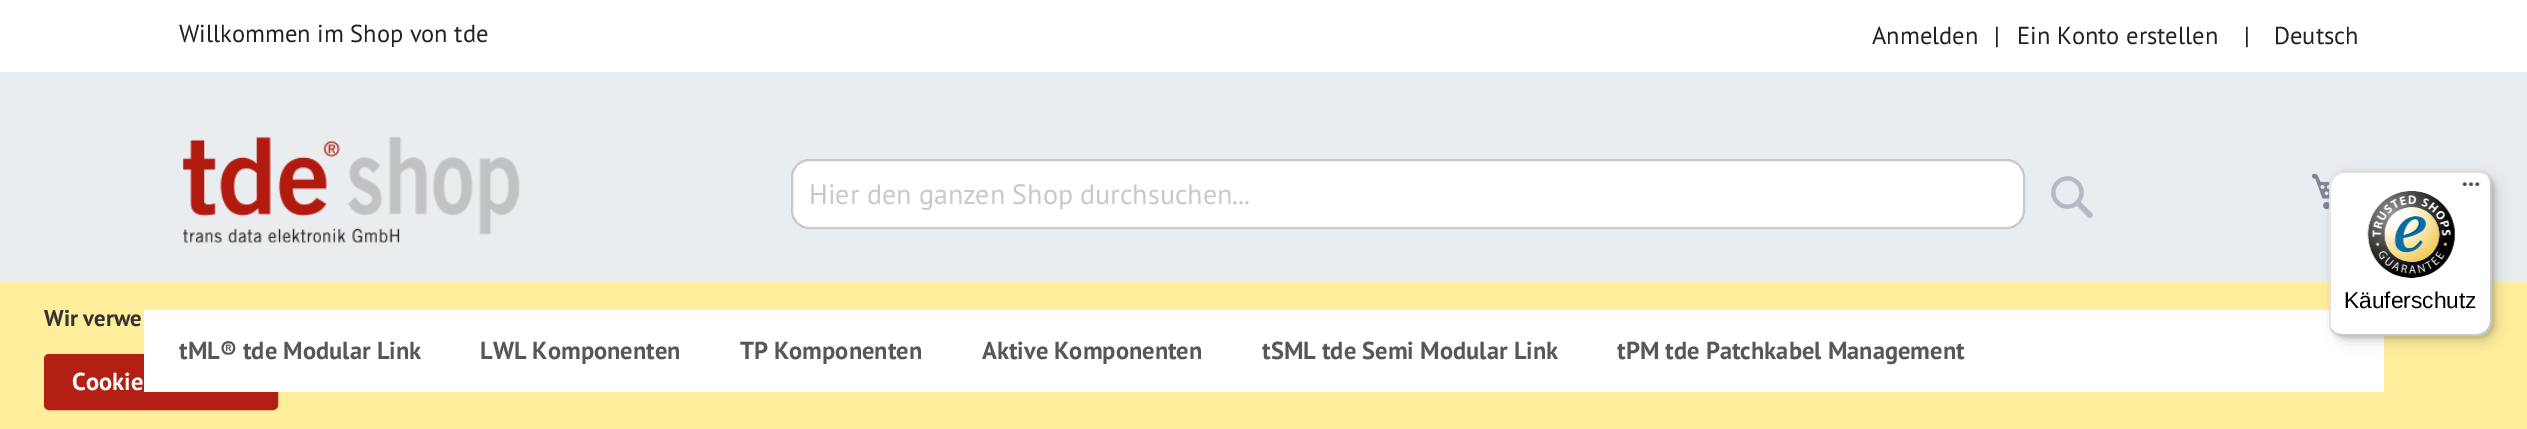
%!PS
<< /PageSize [2527 429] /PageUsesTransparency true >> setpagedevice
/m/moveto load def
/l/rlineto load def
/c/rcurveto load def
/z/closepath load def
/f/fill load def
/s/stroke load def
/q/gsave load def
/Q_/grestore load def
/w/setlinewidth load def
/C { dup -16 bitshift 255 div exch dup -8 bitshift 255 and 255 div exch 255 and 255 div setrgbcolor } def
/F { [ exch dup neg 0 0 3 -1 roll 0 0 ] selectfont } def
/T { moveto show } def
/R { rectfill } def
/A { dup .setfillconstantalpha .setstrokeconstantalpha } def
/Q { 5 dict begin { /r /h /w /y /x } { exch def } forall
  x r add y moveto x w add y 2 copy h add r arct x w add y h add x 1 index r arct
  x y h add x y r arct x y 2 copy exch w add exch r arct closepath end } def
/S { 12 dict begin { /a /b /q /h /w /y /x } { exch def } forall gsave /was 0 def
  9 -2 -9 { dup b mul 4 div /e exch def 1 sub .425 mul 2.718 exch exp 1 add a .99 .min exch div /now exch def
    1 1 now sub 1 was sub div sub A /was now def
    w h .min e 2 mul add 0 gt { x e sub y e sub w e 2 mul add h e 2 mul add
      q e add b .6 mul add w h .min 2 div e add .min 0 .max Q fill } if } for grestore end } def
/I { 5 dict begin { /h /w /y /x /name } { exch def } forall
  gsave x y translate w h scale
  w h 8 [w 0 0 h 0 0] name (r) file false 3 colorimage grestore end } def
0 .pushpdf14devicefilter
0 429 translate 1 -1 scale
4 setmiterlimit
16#EAEDEF C
0 0 2527 429 R
16#FFFFFF C
0 0 2527 72 R
/PTSans-Regular 24.5 F
16#212224 C
(Willkommen im Shop von tde) 179 42 T
(Anmelden) 1872 44 T
(|) 1994 44 T
(Ein Konto erstellen) 2017 44 T
(|) 2244 44 T
(Deutsch) 2274 44 T
(1.rgb) 183 136 337 107 I
16#FFFFFF C
792 160 1232 68 17 Q q f Q_
16#C9C9C9 C
2 w
s
/PTSans-Regular 28 F
(Hier den ganzen Shop durchsuchen...) 809 204 T
(2.rgb) 2051 176 42 42 I
(3.rgb) 2312 173 18 37 I
16#FFEE9C C
0 282 2527 147 R
16#B32013 C
45 355 232 54 4 Q q f Q_
s
16#FFFFFF C
144 310 2240 82 R
/PTSans-Bold 24.5 F
16#575757 C
(tML® tde Modular Link) 179 359 T
(LWL Komponenten) 480 359 T
(TP Komponenten) 740 359 T
(Aktive Komponenten) 982 359 T
(tSML tde Semi Modular Link) 1262 359 T
(tPM tde Patchkabel Management) 1617 359 T
16#000000 C
2335 177 162 164 14 7 .15 S
2331 173 163 165 14 2 .15 S
16#FFFFFF C
2329 172 163 164 14 Q f
0.1 A
16#000000 C
2345 173 m 135 0 l 2 0 5 1 7 2 c -3 -2 -6 -3 -9 -3 c -135 0 l -8 0 -14 6 -14 14 c 0 136 l 0 5 2 9 6 11 c -3 -2 -4 -6 -4 -9 c 0 -137 l 0 -7 6 -14 14 -14 c z f
0.2 A
2330 328 m 3 5 7 8 13 8 c 135 0 l 8 0 14 -6 14 -14 c 0 -136 l 0 -4 -2 -8 -5 -10 c 2 2 3 5 3 8 c 0 136 l 0 8 -6 14 -14 14 c -134 0 l -5 0 -9 -2 -12 -6 c z f
16#323232 C
2334 332 m 2 3 5 4 9 4 c 135 0 l 8 0 14 -6 14 -14 c 0 -136 l 0 -3 -1 -6 -2 -8 c 1 2 1 4 1 6 c 0 137 l 0 8 -6 14 -14 14 c -135 0 l -3 0 -6 -1 -8 -3 c z f
0.3 A
16#FFFFFF C
2332 331 m 2 3 6 5 11 5 c 135 0 l 8 0 14 -6 14 -14 c 0 -136 l 0 -4 -1 -7 -4 -9 c 2 2 3 5 3 8 c 0 136 l 0 8 -6 14 -14 14 c -135 0 l -4 0 -7 -2 -10 -4 c z f
1 A
(4.rgb) 2462 182 18 4 I
(5.rgb) 2367 191 89 87 I
/LiberationSans-Regular 22.75 F
16#000000 C
(Käuferschutz) 2344 308 T
/PTSans-Bold 22.75 F
16#333333 C
(Wir verwe) 44 326 T
/PTSans-Bold 24.5 F
16#FFFFFF C
(Cookie) 72 390 T
.poppdf14devicefilter showpage
